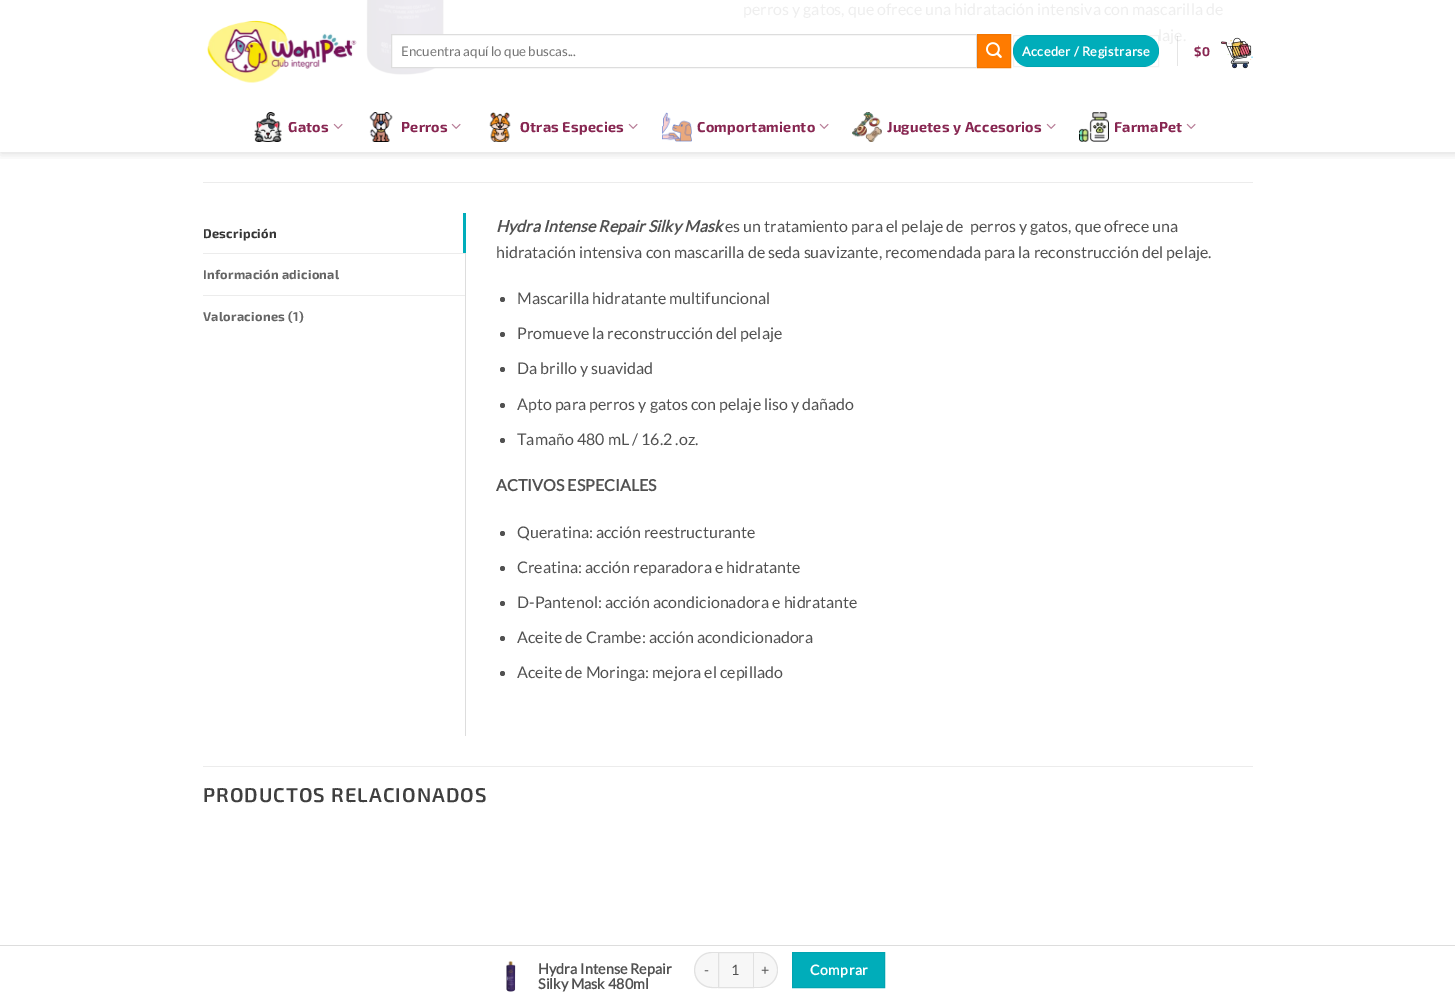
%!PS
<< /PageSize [1455 1008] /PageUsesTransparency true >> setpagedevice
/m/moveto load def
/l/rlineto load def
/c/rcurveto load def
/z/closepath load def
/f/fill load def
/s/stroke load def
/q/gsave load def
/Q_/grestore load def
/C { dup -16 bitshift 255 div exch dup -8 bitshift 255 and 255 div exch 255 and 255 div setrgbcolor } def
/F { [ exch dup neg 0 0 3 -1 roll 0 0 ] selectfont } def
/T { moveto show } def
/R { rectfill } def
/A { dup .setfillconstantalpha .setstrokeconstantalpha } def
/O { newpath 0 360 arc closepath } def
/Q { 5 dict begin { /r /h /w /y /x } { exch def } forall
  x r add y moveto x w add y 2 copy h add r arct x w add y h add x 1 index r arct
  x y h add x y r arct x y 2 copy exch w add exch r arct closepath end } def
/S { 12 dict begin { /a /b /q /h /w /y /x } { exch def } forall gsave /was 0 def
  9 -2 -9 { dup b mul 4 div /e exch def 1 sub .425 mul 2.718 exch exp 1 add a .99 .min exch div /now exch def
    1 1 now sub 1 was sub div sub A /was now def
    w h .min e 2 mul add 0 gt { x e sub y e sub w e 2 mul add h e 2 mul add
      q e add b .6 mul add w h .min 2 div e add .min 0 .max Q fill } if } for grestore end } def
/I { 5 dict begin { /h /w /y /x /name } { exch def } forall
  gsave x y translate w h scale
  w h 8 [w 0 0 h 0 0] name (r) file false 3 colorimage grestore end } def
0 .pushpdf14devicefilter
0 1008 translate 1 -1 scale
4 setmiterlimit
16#FFFFFF C
0 0 1455 1008 R
(1.rgb) 366 0 78 75 I
/Lato-Regular 16 F
16#EEEEEE C
(perros y gatos, que ofrece una hidratación intensiva con mascarilla de) 743 15 T
(laje.) 1158 41 T
16#ECECEC C
203 182 1050 1 R
/Exo2-Bold 12.75 F
16#363636 C
203 238 m .25 0 (Descripción) ashow
16#00ADBA C
463 213 3 40 R
16#ECECEC C
203 253 262 1 R
16#656565 C
203 279 m .25 0 (Información adicional) ashow
16#ECECEC C
203 295 262 1 R
16#656565 C
203 321 m .25 0 (Valoraciones \(1\)) ashow
16#DDDDDD C
465 253 1 483 R
/Lato-BoldItalic 16 F
16#515151 C
(Hydra Intense Repair Silky Mask) 496 232 T
/Lato-Regular 16 F
(es un tratamiento para el pelaje de  perros y gatos, que ofrece una) 725 232 T
(hidratación intensiva con mascarilla de seda suavizante, recomendada para la reconstrucción del pelaje.) 496 258 T
502.5 299.5 2.5 O f
(Mascarilla hidratante multifuncional) 517 304 T
502.5 334.5 2.5 O f
(Promueve la reconstrucción del pelaje) 517 339 T
502.5 369.5 2.5 O f
(Da brillo y suavidad) 517 374 T
502.5 405.5 2.5 O f
(Apto para perros y gatos con pelaje liso y dañado) 517 410 T
502.5 440.5 2.5 O f
(Tamaño 480 mL / 16.2 .oz.) 517 445 T
/Lato-Bold 16 F
(ACTIVOS ESPECIALES) 496 491 T
502.5 533.5 2.5 O f
/Lato-Regular 16 F
(Queratina: acción reestructurante) 517 538 T
502.5 568.5 2.5 O f
(Creatina: acción reparadora e hidratante) 517 573 T
502.5 603.5 2.5 O f
(D-Pantenol: acción acondicionadora e hidratante) 517 608 T
502.5 638.5 2.5 O f
(Aceite de Crambe: acción acondicionadora) 517 643 T
502.5 673.5 2.5 O f
(Aceite de Moringa: mejora el cepillado) 517 678 T
16#ECECEC C
203 766 1050 1 R
/Exo2-SemiBold 20 F
16#3F3F3F C
203 802 m 1 0 (PRODUCTOS RELACIONADOS) ashow
q
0 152 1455 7 rectclip
16#000000 C
1 1 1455 152 0 5 .15 S
Q_
(2.rgb) 207 20 150 63 I
16#FFFFFF C
392 35 52 32 R
16#DDDDDD C
391.5 34.5 585 33 rectstroke
/Lato-Regular 13.25 F
16#757575 C
(Encuentra aquí lo que buscas...) 401 56 T
16#FF7B00 C
977.5 34.5 m 33 0 l 0 33 l -33 0 l z q f Q_
16#F27500 C
s
(3.rgb) 986 42 16 16 I
16#00ADBA C
1013 35 146 32 16 Q f
0.05 A
16#000000 C
1013.5 35.5 145 31 rectstroke
/Lato-Bold 12.75 F
1 A
16#FFFFFF C
1022 56 m .4 0 (Acceder / Registrarse) ashow
0.1 A
16#000000 C
1177 36 1 30 R
/Exo2-Bold 12.75 F
1 A
16#872651 C
1194 56 m .25 0 ($0) ashow
(4.rgb) 1221 37 32 32 I
(5.rgb) 254 112 28 30 I
/Exo2-Bold 14.4 F
288 132 m .25 0 (Gatos) ashow
(6.rgb) 333 123 10 6 I
(7.rgb) 369 112 24 30 I
401 132 m .25 0 (Perros) ashow
(6.rgb) 451 123 10 6 I
(8.rgb) 489 112 22 30 I
520 132 m .25 0 (Otras Especies) ashow
(6.rgb) 628 123 10 6 I
(9.rgb) 662 112 30 30 I
697 132 m .25 0 (Comportamiento) ashow
(6.rgb) 819 123 10 6 I
(10.rgb) 852 112 30 30 I
887 132 m .25 0 (Juguetes y Accesorios) ashow
(6.rgb) 1046 123 10 6 I
(11.rgb) 1079 112 30 30 I
1114 132 m .25 0 (FarmaPet) ashow
(6.rgb) 1186 123 10 6 I
16#DDDDDD C
0 945 1455 1 R
(12.rgb) 506 961 10 31 I
/Lato-Bold 14.4 F
16#515151 C
(Hydra Intense Repair) 538 974 T
(Silky Mask 480ml) 538 989 T
16#F7F7F7 C
712 952 m 6 0 l 0 36 l -6 0 l -10 0 -18 -8 -18 -18 c 0 -10 8 -18 18 -18 c z f
0.09 A
16#000000 C
712 952 m 6 0 l 0 36 l -4.5 0 -9 .5 -13 -1.5 c -18 -7.5 -12.5 -34.5 7 -34.5 c z 712 953 m 6 0 l 0 34 l -4 0 -8.5 .5 -12.5 -1.5 c -17 -7 -12 -32.5 6.5 -32.5 c z eofill
/Lato-Regular 14 F
1 A
16#515151 C
704 975 m .5 0 (-) ashow
16#F7F7F7 C
718.5 952.5 m 35 0 l 0 35 l -35 0 l z q f Q_
16#E1E1E1 C
s
/Lato-Regular 14.4 F
16#515151 C
(1) 731 975 T
16#F7F7F7 C
754 952 m 6 0 l 10 0 18 8 18 18 c 0 10 -8 18 -18 18 c -6 0 l z f
0.09 A
16#000000 C
754 952 m 6 0 l 10 0 18 8 18 18 c 0 10 -8 18 -18 18 c -6 0 l z 754 953 m 6 0 l 9.5 0 17 7.5 17 17 c 0 9.5 -7.5 17 -17 17 c -6 0 l z eofill
/Lato-Regular 14 F
1 A
16#515151 C
761 975 m .5 0 (+) ashow
16#00ADBA C
792.5 952.5 m 92 0 l 0 35 l -92 0 l z q f Q_
16#00A4B1 C
s
/Lato-Bold 14 F
16#FFFFFF C
810 975 m .5 0 (Comprar) ashow
.poppdf14devicefilter showpage
